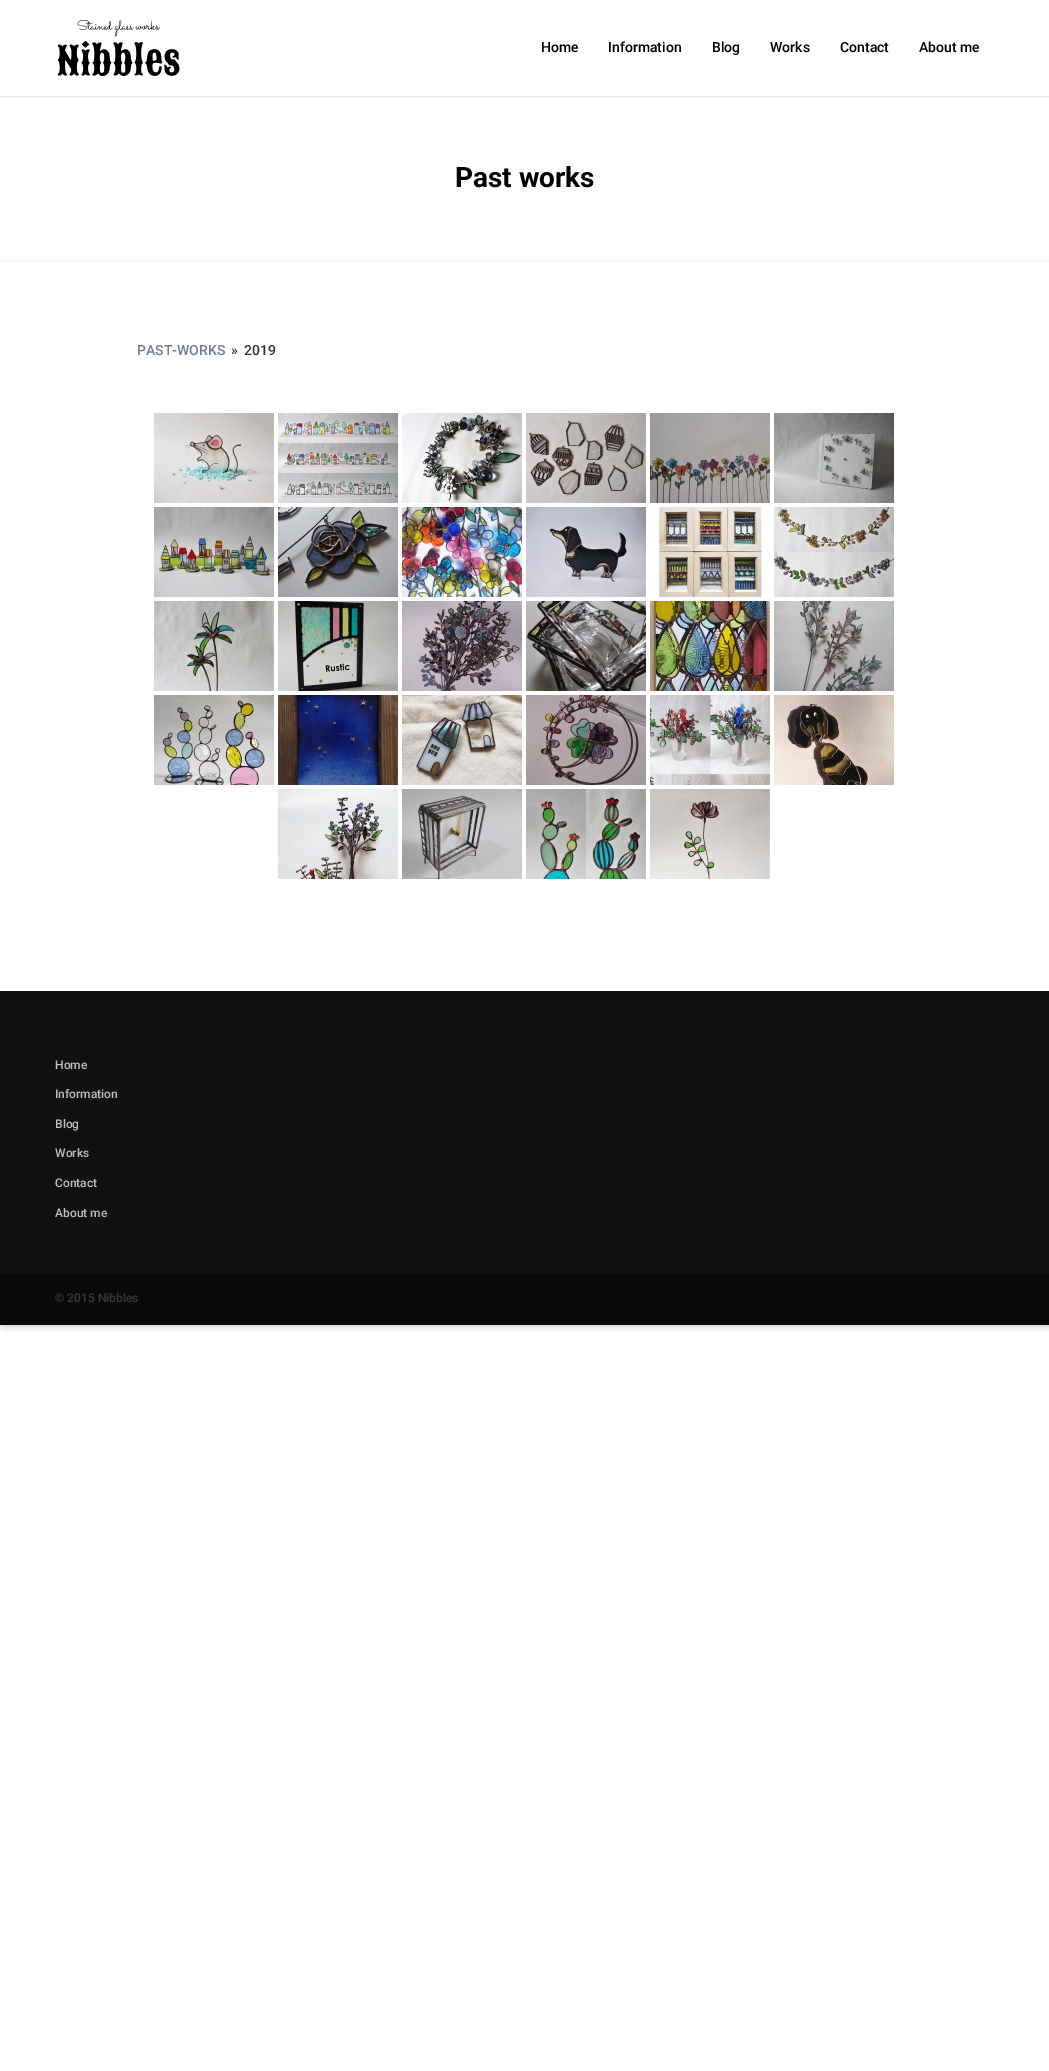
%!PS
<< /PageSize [1049 2071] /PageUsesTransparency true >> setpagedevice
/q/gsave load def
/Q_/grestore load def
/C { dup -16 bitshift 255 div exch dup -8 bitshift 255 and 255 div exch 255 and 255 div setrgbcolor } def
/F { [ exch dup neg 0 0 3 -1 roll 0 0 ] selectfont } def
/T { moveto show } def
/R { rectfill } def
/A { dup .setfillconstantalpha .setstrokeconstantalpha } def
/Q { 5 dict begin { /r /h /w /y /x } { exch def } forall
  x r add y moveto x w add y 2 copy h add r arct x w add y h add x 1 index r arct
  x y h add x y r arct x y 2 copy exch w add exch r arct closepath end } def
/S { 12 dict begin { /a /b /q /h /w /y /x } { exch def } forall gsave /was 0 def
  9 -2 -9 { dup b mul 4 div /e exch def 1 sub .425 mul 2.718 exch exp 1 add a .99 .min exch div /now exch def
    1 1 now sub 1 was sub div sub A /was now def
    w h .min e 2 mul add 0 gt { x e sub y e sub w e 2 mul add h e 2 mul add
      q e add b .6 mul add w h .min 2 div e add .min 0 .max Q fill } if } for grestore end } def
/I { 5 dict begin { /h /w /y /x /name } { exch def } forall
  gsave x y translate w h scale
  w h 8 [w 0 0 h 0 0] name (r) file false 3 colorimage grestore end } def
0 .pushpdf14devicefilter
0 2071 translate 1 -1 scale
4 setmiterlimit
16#FFFFFF C
0 0 1049 2071 R
q
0 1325 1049 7 rectclip
16#000000 C
3 0 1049 1325 0 5 .3 S
Q_
q
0 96 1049 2 rectclip
16#000000 C
0 0 1049 96 0 1.5 .2 S
Q_
(1.rgb) 57 20 123 56 I
/Roboto-Medium 14 F
16#000000 C
(Home) 541 52 T
(Information) 608 52 T
(Blog) 712 52 T
(Works) 770 52 T
(Contact) 840 52 T
(About me) 919 52 T
16#EEEEEE C
0 260 1049 1 R
/Roboto-Bold 28 F
16#000000 C
(Past works) 455 187 T
/Roboto-Medium 14 F
16#6F7C91 C
(PAST-WORKS) 137 355 T
16#333333 C
(») 231 355 T
(2019) 244 355 T
(2.rgb) 154 413 120 90 I
(3.rgb) 278 413 120 90 I
(4.rgb) 402 413 120 90 I
(5.rgb) 526 413 120 90 I
(6.rgb) 650 413 120 90 I
(7.rgb) 774 413 120 90 I
(8.rgb) 154 507 120 90 I
(9.rgb) 278 507 120 90 I
(10.rgb) 402 507 120 90 I
(11.rgb) 526 507 120 90 I
(12.rgb) 659 507 103 90 I
(13.rgb) 774 507 120 90 I
(14.rgb) 154 601 120 90 I
(15.rgb) 278 601 120 90 I
(16.rgb) 402 601 120 90 I
(17.rgb) 526 601 120 90 I
(18.rgb) 650 601 120 90 I
(19.rgb) 774 601 120 90 I
(20.rgb) 154 695 120 90 I
(21.rgb) 278 695 120 90 I
(22.rgb) 402 695 120 90 I
(23.rgb) 526 695 120 90 I
(24.rgb) 650 695 120 90 I
(25.rgb) 774 695 120 90 I
(26.rgb) 278 789 120 90 I
(27.rgb) 402 789 120 90 I
(28.rgb) 526 789 120 90 I
(29.rgb) 650 789 120 90 I
16#111113 C
0 991 1049 282 R
/Roboto-Medium 12 F
16#BFBFBF C
(Home) 55 1069 T
(Information) 55 1098 T
(Blog) 55 1128 T
(Works) 55 1157 T
(Contact) 55 1187 T
(About me) 55 1217 T
16#0A0A0A C
0 1273 1049 52 R
16#393939 C
(© 2015 Nibbles) 55 1302 T
.poppdf14devicefilter showpage
